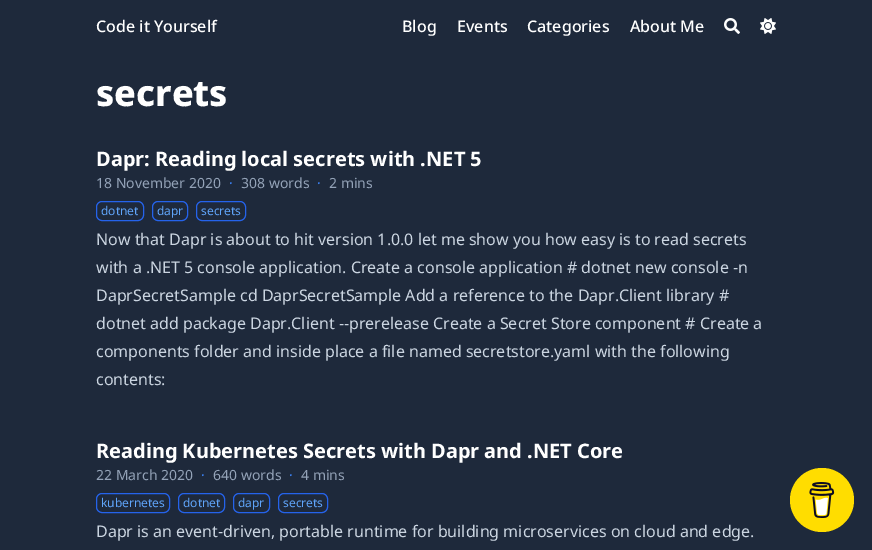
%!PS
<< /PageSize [872 550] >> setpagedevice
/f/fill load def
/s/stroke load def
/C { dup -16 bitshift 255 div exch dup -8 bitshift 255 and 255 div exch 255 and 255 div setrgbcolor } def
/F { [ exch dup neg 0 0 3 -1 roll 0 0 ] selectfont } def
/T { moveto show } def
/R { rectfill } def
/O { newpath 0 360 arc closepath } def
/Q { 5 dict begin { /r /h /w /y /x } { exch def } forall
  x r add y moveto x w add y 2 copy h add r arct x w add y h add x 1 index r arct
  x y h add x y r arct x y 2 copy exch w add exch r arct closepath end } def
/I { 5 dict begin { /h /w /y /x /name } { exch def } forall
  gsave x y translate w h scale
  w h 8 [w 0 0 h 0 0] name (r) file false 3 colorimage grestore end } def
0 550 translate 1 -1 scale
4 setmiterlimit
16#1E293B C
0 0 872 550 R
/NotoSans-Medium 16 F
16#FFFFFF C
(Code it Yourself) 96 32 T
(Blog) 402 32 T
(Events) 457 32 T
(Categories) 527 32 T
(About Me) 630 32 T
(1.rgb) 724 18 16 16 I
(2.rgb) 760 18 16 16 I
/NotoSans-ExtraBold 36 F
(secrets) 96 106 T
/NotoSans-Bold 20 F
(Dapr: Reading local secrets with .NET 5) 96 166 T
/NotoSans-Regular 14 F
16#94A3B8 C
(18 November 2020) 96 188 T
16#3B82F6 C
(·) 229 188 T
16#94A3B8 C
(308 words) 241 188 T
16#3B82F6 C
(·) 317 188 T
16#94A3B8 C
(2 mins) 329 188 T
16#2563EB C
96.5 201.5 47 19 5.5 Q s
/NotoSans-Regular 12 F
16#60A5FA C
(dotnet) 101 215 T
16#2563EB C
152.5 201.5 35 19 5.5 Q s
16#60A5FA C
(dapr) 157 215 T
16#2563EB C
196.5 201.5 49 19 5.5 Q s
16#60A5FA C
(secrets) 201 215 T
/NotoSans-Regular 16 F
16#CBD5E1 C
(Now that Dapr is about to hit version 1.0.0 let me show you how easy is to read secrets) 96 245 T
(with a .NET 5 console application. Create a console application # dotnet new console -n) 96 273 T
(DaprSecretSample cd DaprSecretSample Add a reference to the Dapr.Client library #) 96 301 T
(dotnet add package Dapr.Client --prerelease Create a Secret Store component # Create a) 96 329 T
(components folder and inside place a file named secretstore.yaml with the following) 96 357 T
(contents:) 96 385 T
/NotoSans-Bold 20 F
16#FFFFFF C
(Reading Kubernetes Secrets with Dapr and .NET Core) 96 458 T
/NotoSans-Regular 14 F
16#94A3B8 C
(22 March 2020) 96 480 T
16#3B82F6 C
(·) 201 480 T
16#94A3B8 C
(640 words) 213 480 T
16#3B82F6 C
(·) 289 480 T
16#94A3B8 C
(4 mins) 301 480 T
16#2563EB C
96.5 493.5 73 19 5.5 Q s
/NotoSans-Regular 12 F
16#60A5FA C
(kubernetes) 101 507 T
16#2563EB C
178.5 493.5 46 19 5.5 Q s
16#60A5FA C
(dotnet) 183 507 T
16#2563EB C
233.5 493.5 36 19 5.5 Q s
16#60A5FA C
(dapr) 238 507 T
16#2563EB C
278.5 493.5 49 19 5.5 Q s
16#60A5FA C
(secrets) 283 507 T
/NotoSans-Regular 16 F
16#CBD5E1 C
(Dapr is an event-driven, portable runtime for building microservices on cloud and edge.) 96 537 T
16#FFDD00 C
822 500 32 O f
(3.rgb) 809 482 26 36 I
showpage
